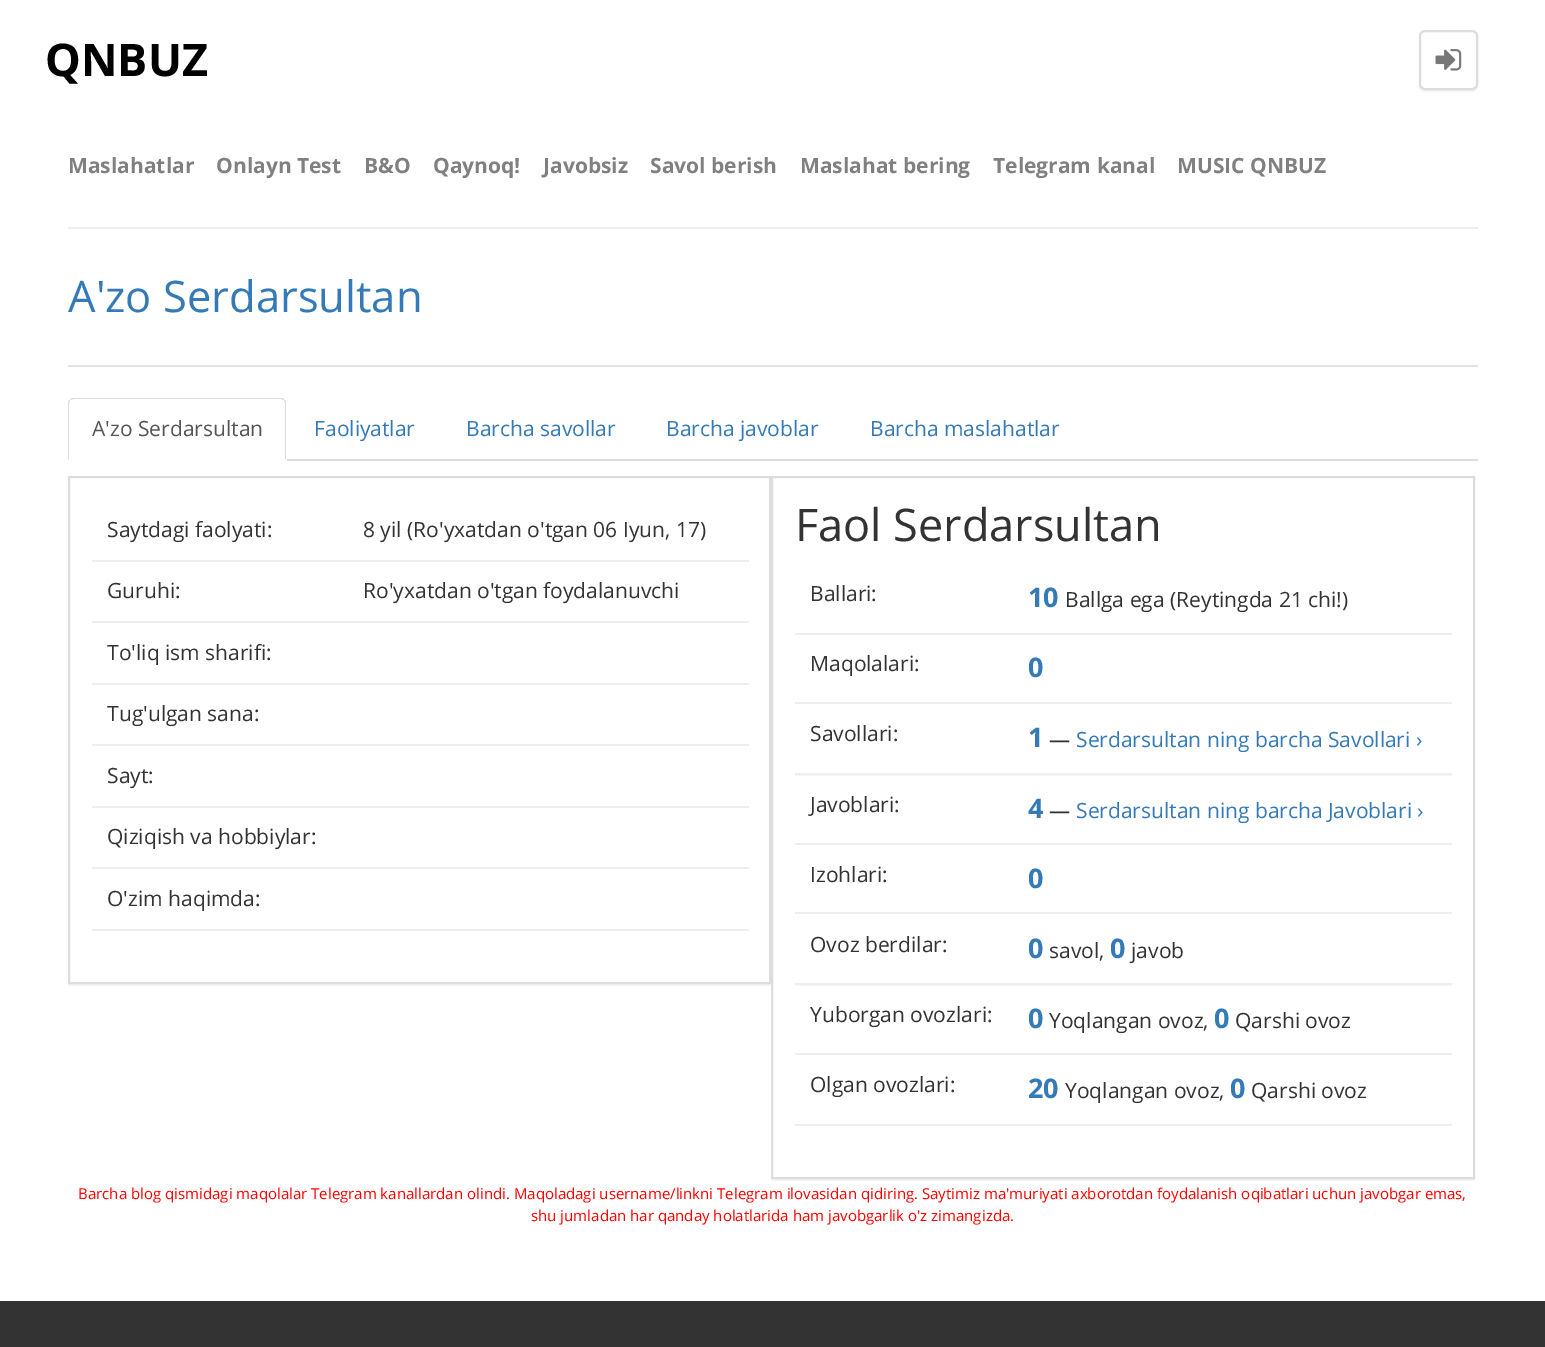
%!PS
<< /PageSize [1545 1347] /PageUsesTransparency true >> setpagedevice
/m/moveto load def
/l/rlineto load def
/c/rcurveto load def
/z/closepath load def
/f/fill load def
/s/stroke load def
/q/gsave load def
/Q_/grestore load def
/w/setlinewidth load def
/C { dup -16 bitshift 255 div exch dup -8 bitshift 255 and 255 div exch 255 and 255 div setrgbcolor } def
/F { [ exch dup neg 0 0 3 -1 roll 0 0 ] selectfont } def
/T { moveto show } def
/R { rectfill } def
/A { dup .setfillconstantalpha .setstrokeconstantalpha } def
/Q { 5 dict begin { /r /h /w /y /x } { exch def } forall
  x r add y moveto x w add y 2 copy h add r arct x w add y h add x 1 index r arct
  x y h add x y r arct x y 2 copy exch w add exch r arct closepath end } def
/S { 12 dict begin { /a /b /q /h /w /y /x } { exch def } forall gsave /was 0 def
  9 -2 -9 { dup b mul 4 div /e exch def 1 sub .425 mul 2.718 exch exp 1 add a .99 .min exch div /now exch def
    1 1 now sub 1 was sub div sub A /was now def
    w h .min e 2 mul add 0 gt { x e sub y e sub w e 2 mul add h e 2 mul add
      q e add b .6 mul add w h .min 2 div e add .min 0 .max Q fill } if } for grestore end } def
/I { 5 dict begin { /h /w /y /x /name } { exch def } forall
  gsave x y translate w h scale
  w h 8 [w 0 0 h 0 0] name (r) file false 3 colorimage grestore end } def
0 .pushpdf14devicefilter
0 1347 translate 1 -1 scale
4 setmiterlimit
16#FFFFFF C
0 0 1545 1347 R
/OpenSans-Bold 45 F
16#000000 C
(QNBUZ) 45 76 T
1419 32 59 60 6 1 .05 S
16#FFFFFF C
1420 31 57 58 5 Q q f Q_
16#DDDDDD C
2 w
s
(1.rgb) 1435 49 27 22 I
/OpenSans-Bold 21 F
16#808080 C
(Maslahatlar) 68 173 T
(Onlayn Test) 216 173 T
(В&О) 364 173 T
(Qaynoq!) 433 173 T
(Javobsiz) 543 173 T
(Savol berish) 650 173 T
(Maslahat bering) 800 173 T
(Telegram kanal) 993 173 T
(MUSIC QNBUZ) 1177 173 T
16#EEEEEE C
68 227 1410 2 R
16#E2E2E2 C
68 365 1410 2 R
/OpenSans-Regular 43.5 F
16#337AB7 C
(A'zo Serdarsultan) 68 312 T
16#DDDDDD C
287 459 1191 2 R
74 398 m -2 0 -4 0 -4 2 c 1 0 2 -1 4 -1 c 206 0 l 2 0 3 1 4 1 c 0 -2 -2 -2 -4 -2 c z f
286 460 m 0 -56 l 0 -2 0 -4 -2 -4 c 0 1 1 2 1 4 c 0 55 l z f
70 400 m -2 0 -2 2 -2 4 c 0 56 l 1 -1 l 0 -55 l 0 -2 1 -3 1 -4 c z f
/OpenSans-Regular 21 F
16#555555 C
(A'zo Serdarsultan) 92 436 T
16#337AB7 C
(Faoliyatlar) 314 436 T
(Barcha savollar) 466 436 T
(Barcha javoblar) 666 436 T
(Barcha maslahatlar) 870 436 T
q
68 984 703 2 rectclip
16#000000 C
68 477 703 509 0 1 .05 S
Q_
16#DDDDDD C
69 477 701 506 rectstroke
16#333333 C
(Saytdagi faolyati:) 107 537 T
16#EEEEEE C
92 560 657 2 R
16#333333 C
(8 yil \(Ro'yxatdan o'tgan 06 Iyun, 17\)) 363 537 T
(Guruhi:) 107 598 T
16#EEEEEE C
92 621 657 2 R
16#333333 C
(Ro'yxatdan o'tgan foydalanuvchi) 363 598 T
(To'liq ism sharifi:) 107 660 T
16#EEEEEE C
92 683 657 2 R
16#333333 C
(Tug'ulgan sana:) 107 721 T
16#EEEEEE C
92 744 657 2 R
16#333333 C
(Sayt:) 107 783 T
16#EEEEEE C
92 806 657 2 R
16#333333 C
(Qiziqish va hobbiylar:) 107 844 T
16#EEEEEE C
92 867 657 2 R
16#333333 C
(O'zim haqimda:) 107 906 T
16#EEEEEE C
92 929 657 2 R
q
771 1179 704 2 rectclip
16#000000 C
771 477 704 704 0 1 .05 S
Q_
16#DDDDDD C
772 477 702 701 rectstroke
/OpenSans-Regular 45 F
16#333333 C
(Faol Serdarsultan) 795 541 T
/OpenSans-Regular 21 F
(Ballari:) 810 601 T
16#EEEEEE C
795 633 657 2 R
/OpenSans-Bold 27 F
16#337AB7 C
(10) 1028 607 T
/OpenSans-Regular 21 F
16#333333 C
(Ballga ega \(Reytingda 21 chi!\)) 1065 607 T
(Maqolalari:) 810 671 T
q
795 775 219 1 rectclip
16#000000 C
795 705 219 71 0 1 .05 S
Q_
q
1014 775 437 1 rectclip
16#000000 C
1014 705 437 71 0 1 .05 S
Q_
16#EEEEEE C
795 702 657 2 R
/OpenSans-Bold 27 F
16#337AB7 C
(0) 1028 677 T
/OpenSans-Regular 21 F
16#333333 C
(Savollari:) 810 741 T
16#EEEEEE C
795 773 657 2 R
/OpenSans-Bold 27 F
16#337AB7 C
(1) 1028 747 T
/OpenSans-Regular 21 F
16#333333 C
(—) 1049 747 T
16#337AB7 C
(Serdarsultan ning barcha Savollari ›) 1076 747 T
16#333333 C
(Javoblari:) 810 812 T
16#EEEEEE C
795 843 657 2 R
/OpenSans-Bold 27 F
16#337AB7 C
(4) 1028 818 T
/OpenSans-Regular 21 F
16#333333 C
(—) 1049 818 T
16#337AB7 C
(Serdarsultan ning barcha Javoblari ›) 1076 818 T
16#333333 C
(Izohlari:) 810 882 T
q
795 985 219 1 rectclip
16#000000 C
795 915 219 71 0 1 .05 S
Q_
q
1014 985 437 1 rectclip
16#000000 C
1014 915 437 71 0 1 .05 S
Q_
16#EEEEEE C
795 912 657 2 R
/OpenSans-Bold 27 F
16#337AB7 C
(0) 1028 888 T
/OpenSans-Regular 21 F
16#333333 C
(Ovoz berdilar:) 810 952 T
16#EEEEEE C
795 983 657 2 R
/OpenSans-Bold 27 F
16#337AB7 C
(0) 1028 958 T
/OpenSans-Regular 21 F
16#333333 C
(savol,) 1049 958 T
/OpenSans-Bold 27 F
16#337AB7 C
(0) 1110 958 T
/OpenSans-Regular 21 F
16#333333 C
(javob) 1131 958 T
(Yuborgan ovozlari:) 810 1022 T
16#EEEEEE C
795 1053 657 2 R
/OpenSans-Bold 27 F
16#337AB7 C
(0) 1028 1028 T
/OpenSans-Regular 21 F
16#333333 C
(Yoqlangan ovoz,) 1049 1028 T
/OpenSans-Bold 27 F
16#337AB7 C
(0) 1214 1028 T
/OpenSans-Regular 21 F
16#333333 C
(Qarshi ovoz) 1235 1028 T
(Olgan ovozlari:) 810 1092 T
16#EEEEEE C
795 1124 657 2 R
/OpenSans-Bold 27 F
16#337AB7 C
(20) 1028 1098 T
/OpenSans-Regular 21 F
16#333333 C
(Yoqlangan ovoz,) 1065 1098 T
/OpenSans-Bold 27 F
16#337AB7 C
(0) 1230 1098 T
/OpenSans-Regular 21 F
16#333333 C
(Qarshi ovoz) 1251 1098 T
/OpenSans-Regular 15 F
16#FF0000 C
(Barcha blog qismidagi maqolalar Telegram kanallardan olindi. Maqoladagi username/linkni Telegram ilovasidan qidiring. Saytimiz ma'muriyati axborotdan foydalanish oqibatlari uchun javobgar emas,) 78 1199 T
(shu jumladan har qanday holatlarida ham javobgarlik o'z zimangizda.) 531 1221 T
16#333333 C
0 1301 1545 46 R
.poppdf14devicefilter showpage
